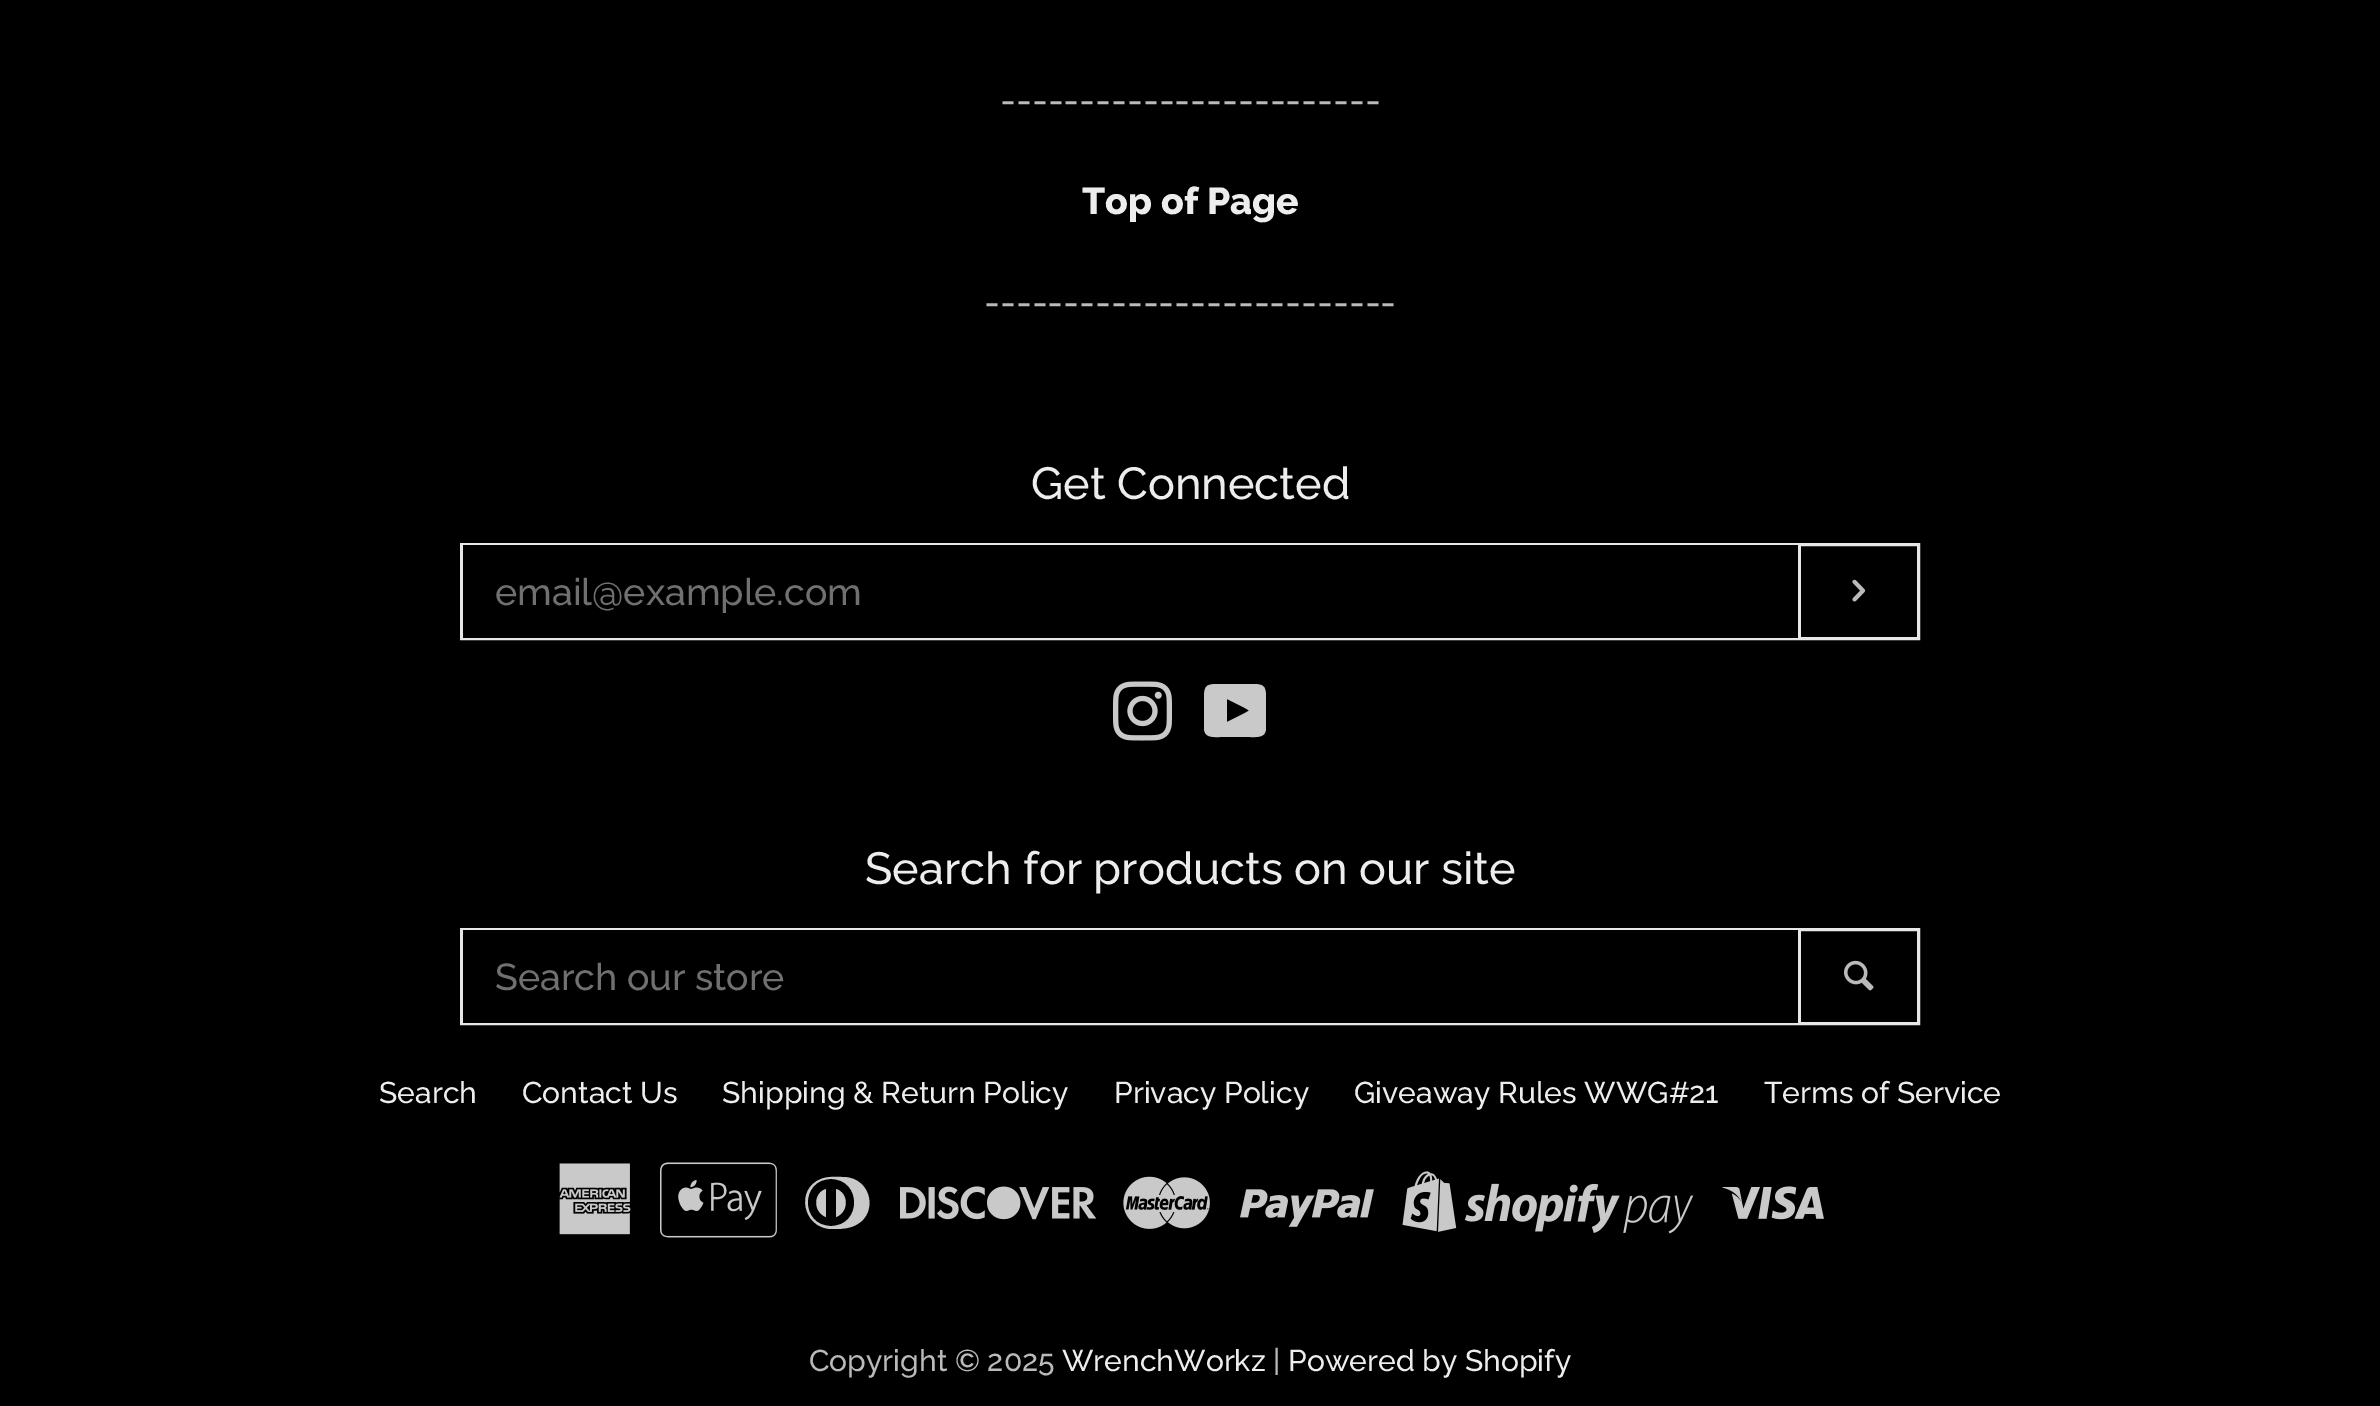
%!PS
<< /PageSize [2380 1406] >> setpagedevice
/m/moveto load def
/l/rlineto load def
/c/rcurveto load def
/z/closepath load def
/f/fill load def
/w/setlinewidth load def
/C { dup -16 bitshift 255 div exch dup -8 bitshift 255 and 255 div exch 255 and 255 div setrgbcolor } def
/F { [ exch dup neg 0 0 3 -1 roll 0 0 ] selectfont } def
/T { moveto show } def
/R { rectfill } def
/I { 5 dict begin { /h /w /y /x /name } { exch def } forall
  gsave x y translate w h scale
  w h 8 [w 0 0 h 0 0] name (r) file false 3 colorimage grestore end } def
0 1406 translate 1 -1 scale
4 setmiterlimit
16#000000 C
0 0 2380 1406 R
/Raleway-Medium 37.5 F
16#BABABA C
(------------------------) 1000 113 T
/Raleway-ExtraBold 37.5 F
16#EDEDED C
(Top of Page) 1082 214 T
/Raleway-Medium 37.5 F
16#BABABA C
(--------------------------) 984 315 T
/Raleway-Medium 45 F
16#EDEDED C
(Get Connected) 1031 499 T
16#E7E7E7 C
3 w
461.5 544.5 1457 94 rectstroke
16#000000 C
463 545 1335 93 R
16#E7E7E7 C
1798 545 3 93 R
/Raleway-Medium 37.5 F
16#707070 C
(email@example.com) 495 605 T
(1.rgb) 1852 579 14 23 I
(2.rgb) 1112 681 61 60 I
16#C9C9C9 C
1204 728 m 0 10 9 9 16 9 c 30 0 l 7 0 16 1 16 -9 c 0 -29 l 0 -14 -2 -15 -16 -15 c -30 0 l -14 0 -16 1 -16 15 c z 1227 722 m 0 -23 l 18 9 l 5 3 5 2 0 5 c z f
/Raleway-Medium 45 F
16#EDEDED C
(Search for products on our site) 865 884 T
16#E7E7E7 C
461.5 929.5 1457 94 rectstroke
16#000000 C
463 930 1335 93 R
16#E7E7E7 C
1798 930 3 93 R
/Raleway-Medium 37.5 F
16#707070 C
(Search our store) 495 990 T
(3.rgb) 1843 960 31 31 I
/Raleway-Medium 30 F
16#EDEDED C
(Search) 379 1103 T
(Contact Us) 522 1103 T
(Shipping & Return Policy) 722 1103 T
(Privacy Policy) 1114 1103 T
(Giveaway Rules WWG#21) 1354 1103 T
(Terms of Service) 1764 1103 T
(4.rgb) 559 1163 72 72 I
(5.rgb) 660 1162 117 76 I
16#C9C9C9 C
843 1177 m 30 0 37 41 8 50 c -6 2 -13 2 -20 2 c -28 -1 -36 -40 -10 -50 c 7 -3 15 -2 22 -2 c z 831 1226 m 31 0 31 -47 0 -47 c -31 0 -31 47 0 47 c z 826 1217 m -13 -5 -13 -24 0 -28 c z 836 1189 m 13 4 13 23 0 28 c z f
(6.rgb) 900 1186 197 34 I
(7.rgb) 1123 1176 87 53 I
(8.rgb) 1240 1189 134 38 I
(9.rgb) 1402 1171 292 63 I
(10.rgb) 1722 1186 102 34 I
16#BABABA C
(Copyright © 2025) 809 1371 T
16#EDEDED C
(WrenchWorkz) 1062 1371 T
16#BABABA C
(|) 1273 1371 T
16#EDEDED C
(Powered by Shopify) 1288 1371 T
showpage
